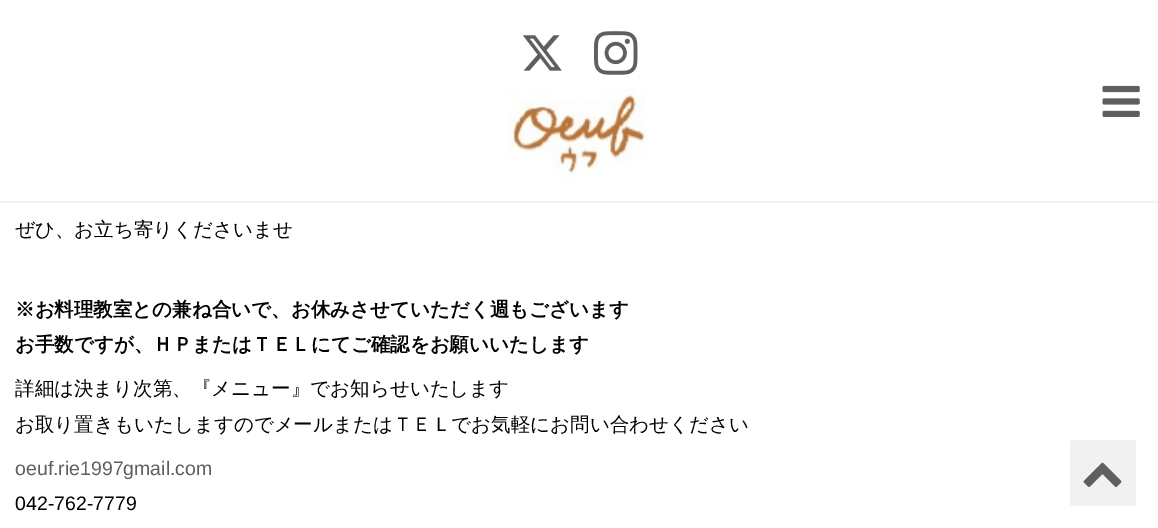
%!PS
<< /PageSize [1158 528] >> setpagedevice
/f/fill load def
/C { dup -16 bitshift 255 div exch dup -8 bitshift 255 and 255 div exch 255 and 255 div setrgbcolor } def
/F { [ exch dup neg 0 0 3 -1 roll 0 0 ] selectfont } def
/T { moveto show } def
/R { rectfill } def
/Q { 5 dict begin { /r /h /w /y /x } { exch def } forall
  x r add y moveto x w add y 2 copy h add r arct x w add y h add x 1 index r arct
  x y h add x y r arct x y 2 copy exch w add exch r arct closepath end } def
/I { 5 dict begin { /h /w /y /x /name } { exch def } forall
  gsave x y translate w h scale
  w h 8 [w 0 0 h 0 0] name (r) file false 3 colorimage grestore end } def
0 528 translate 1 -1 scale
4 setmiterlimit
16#FFFFFF C
0 0 1158 528 R
16#F2F2F2 C
0 201 1158 2 R
(1.rgb) 522 35 40 36 I
(2.rgb) 594 31 44 44 I
(3.rgb) 1102 85 38 32 I
(4.rgb) 507 88 139 90 I
/WenQuanYiZenHei-Medium 19.5 F
16#000000 C
(ぜひ、お立ち寄りくださいませ) 15 236 T
/WenQuanYiZenHei-Bold 19.5 F
(※お料理教室との兼ね合いで、お休みさせていただく週もございます) 15 316 T
(お手数ですが、ＨＰまたはＴＥＬにてご確認をお願いいたします) 15 351 T
/WenQuanYiZenHei-Medium 19.5 F
(詳細は決まり次第、『メニュー』でお知らせいたします) 15 395 T
(お取り置きもいたしますのでメールまたはＴＥＬでお気軽にお問い合わせください) 15 431 T
/LiberationSans-Regular 19.5 F
16#5F5F5F C
(oeuf.rie1997gmail.com) 15 475 T
16#000000 C
(042-762-7779) 15 510 T
16#F1F1F1 C
1070 440 66 66 3 Q f
(5.rgb) 1083 462 39 25 I
showpage
